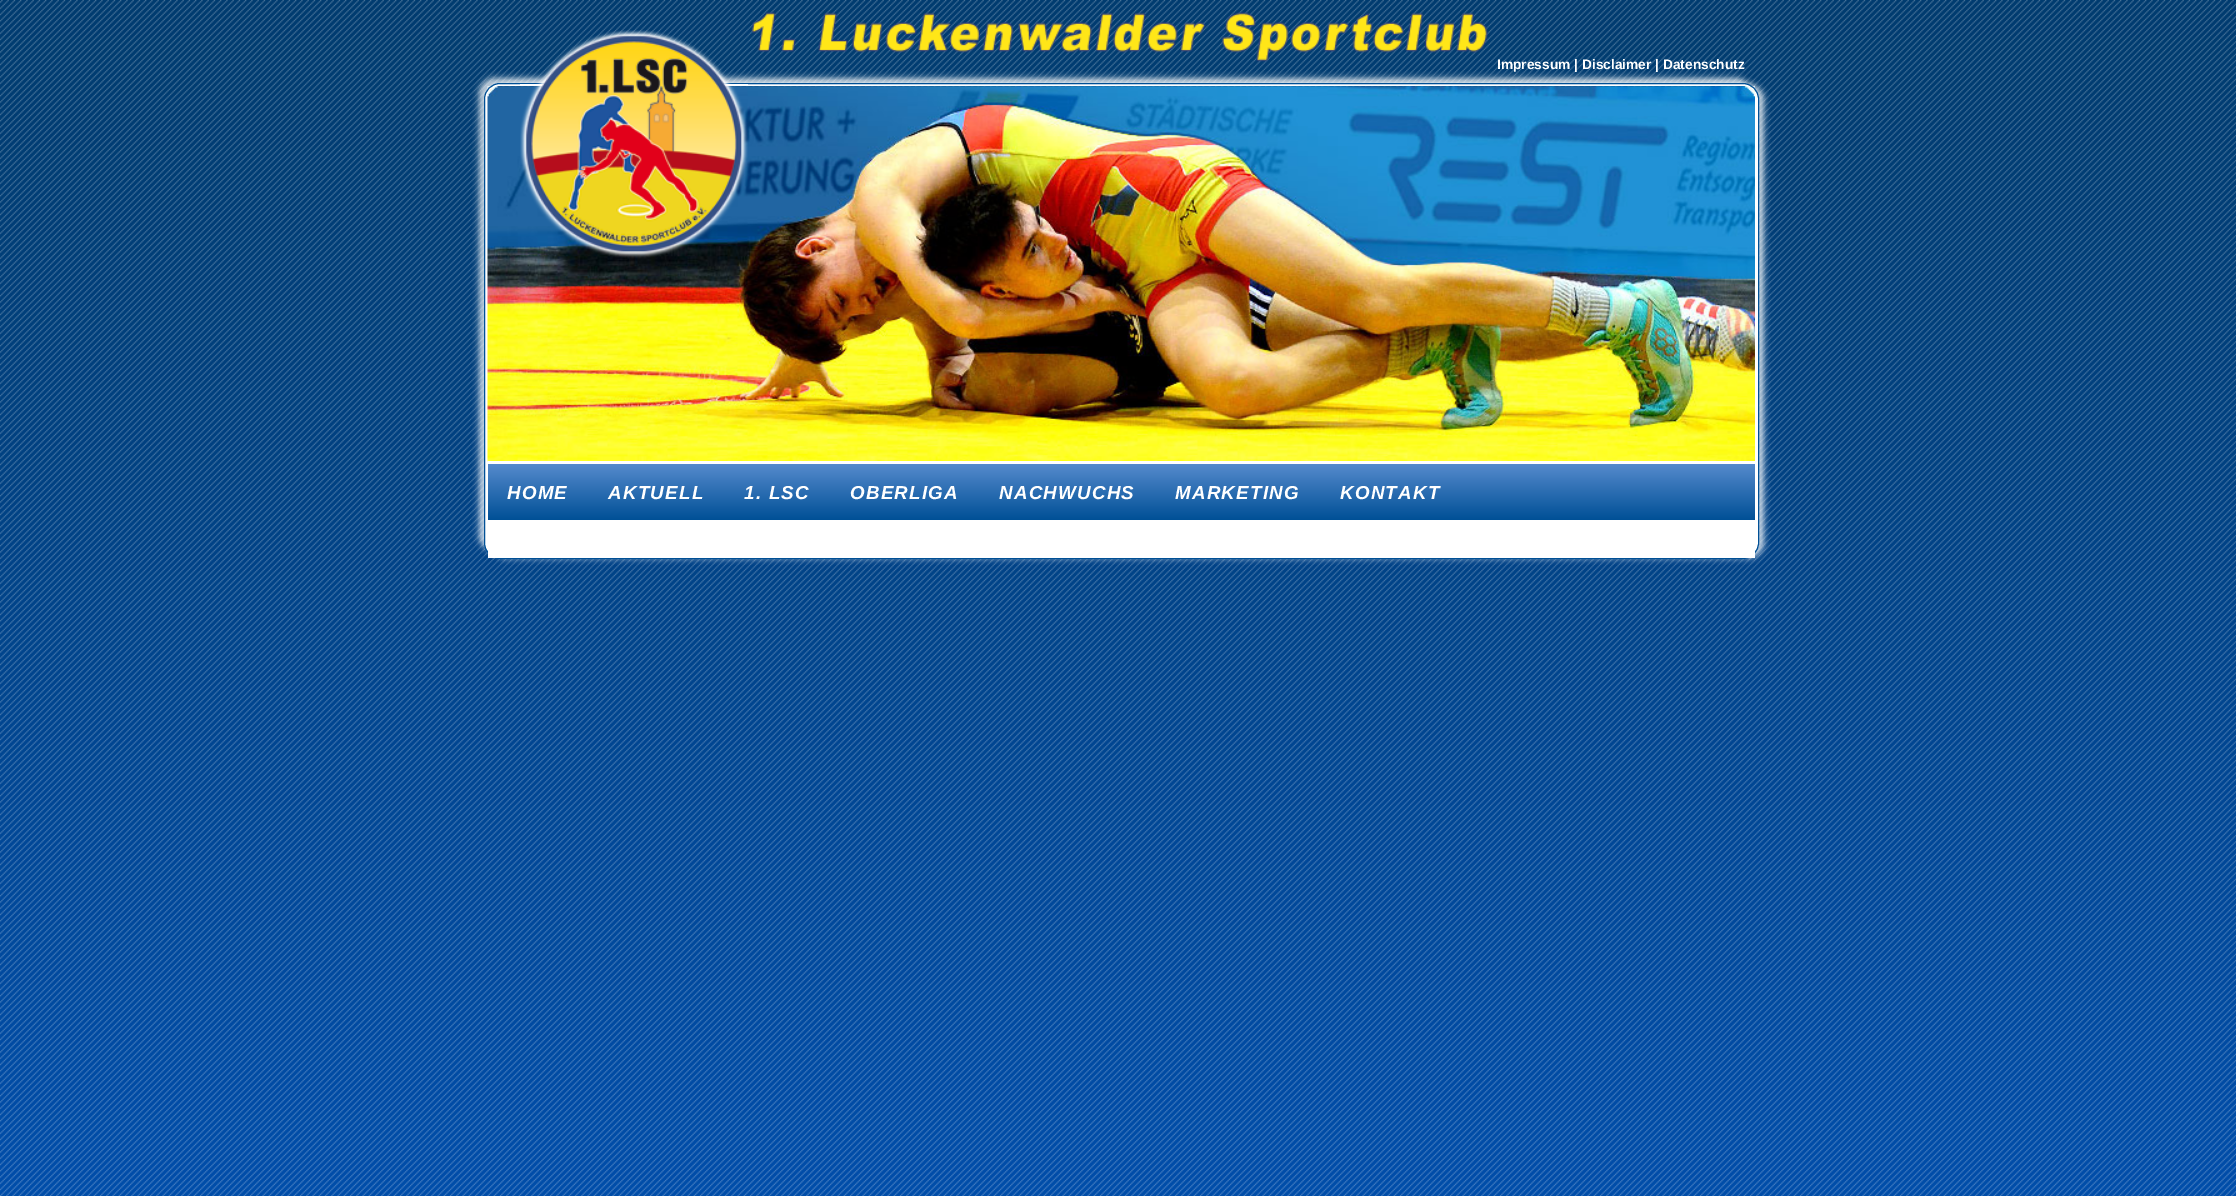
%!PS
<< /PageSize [2236 1196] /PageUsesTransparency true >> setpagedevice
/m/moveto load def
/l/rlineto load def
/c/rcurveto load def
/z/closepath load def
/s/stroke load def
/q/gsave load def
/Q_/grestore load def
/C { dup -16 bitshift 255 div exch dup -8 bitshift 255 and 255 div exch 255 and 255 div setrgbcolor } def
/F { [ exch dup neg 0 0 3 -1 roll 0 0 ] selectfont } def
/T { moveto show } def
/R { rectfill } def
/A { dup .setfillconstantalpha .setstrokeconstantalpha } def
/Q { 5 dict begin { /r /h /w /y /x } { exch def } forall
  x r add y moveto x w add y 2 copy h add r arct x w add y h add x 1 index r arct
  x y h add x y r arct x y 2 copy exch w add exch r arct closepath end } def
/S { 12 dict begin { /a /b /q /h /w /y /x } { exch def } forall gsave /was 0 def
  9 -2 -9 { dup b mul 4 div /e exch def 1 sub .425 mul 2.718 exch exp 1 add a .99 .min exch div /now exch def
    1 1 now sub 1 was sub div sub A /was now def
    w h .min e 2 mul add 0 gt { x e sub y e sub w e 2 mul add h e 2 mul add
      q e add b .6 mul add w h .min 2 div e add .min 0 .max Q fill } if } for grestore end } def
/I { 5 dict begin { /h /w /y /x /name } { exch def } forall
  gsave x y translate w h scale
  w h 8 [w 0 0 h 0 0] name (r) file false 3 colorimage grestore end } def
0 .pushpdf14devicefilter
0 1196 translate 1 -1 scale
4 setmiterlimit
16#FFFFFF C
0 0 2236 1196 R
(1.rgb) 0 0 2236 1196 I
(2.rgb) 751 12 737 50 I
479 78 1272 473 15 3 .75 S
/LiberationSans-Bold 13.75 F
(Impressum | Disclaimer | Datenschutz) 1497 69 T
491 84 1273 474 15 3 .75 S
500 84 m 1242 0 l 9 0 16 6 16 15 c 0 443 l 0 9 -7 16 -16 16 c -1242 0 l -8 0 -15 -7 -15 -16 c 0 -443 l 0 -9 7 -15 15 -15 c z 500 86 m 1242 0 l 7 0 13 6 13 13 c 0 443 l 0 9 -6 16 -13 16 c -1242 0 l -7 0 -12 -7 -12 -16 c 0 -443 l 0 -7 5 -13 12 -13 c z eofill
(3.rgb) 487 86 1268 376 I
16#005096 C
484.5 83.5 1274 475 15.5 Q s
(4.rgb) 520 30 228 228 I
16#FFFFFF C
488 461 1267 3 R
q 488 464 m 1267 0 l 0 56 l -1267 0 l z clip newpath
<< /ShadingType 2 /ColorSpace /DeviceRGB /Coords [1121 464 1121 520] /Extend [true true] /Function << /FunctionType 2 /Domain [0 1] /C0 [.333 .541 .804] /C1 [0 .314 .588] /N 1 >> >> shfill Q_
/LiberationSans-BoldItalic 18.75 F
507 499 m 1.25 0 (HOME) ashow
608 499 m 1.25 0 (AKTUELL) ashow
744 499 m 1.25 0 (1. LSC) ashow
850 499 m 1.25 0 (OBERLIGA) ashow
999 499 m 1.25 0 (NACHWUCHS) ashow
1175 499 m 1.25 0 (MARKETING) ashow
1340 499 m 1.25 0 (KONTAKT) ashow
488 520 1267 38 R
.poppdf14devicefilter showpage
